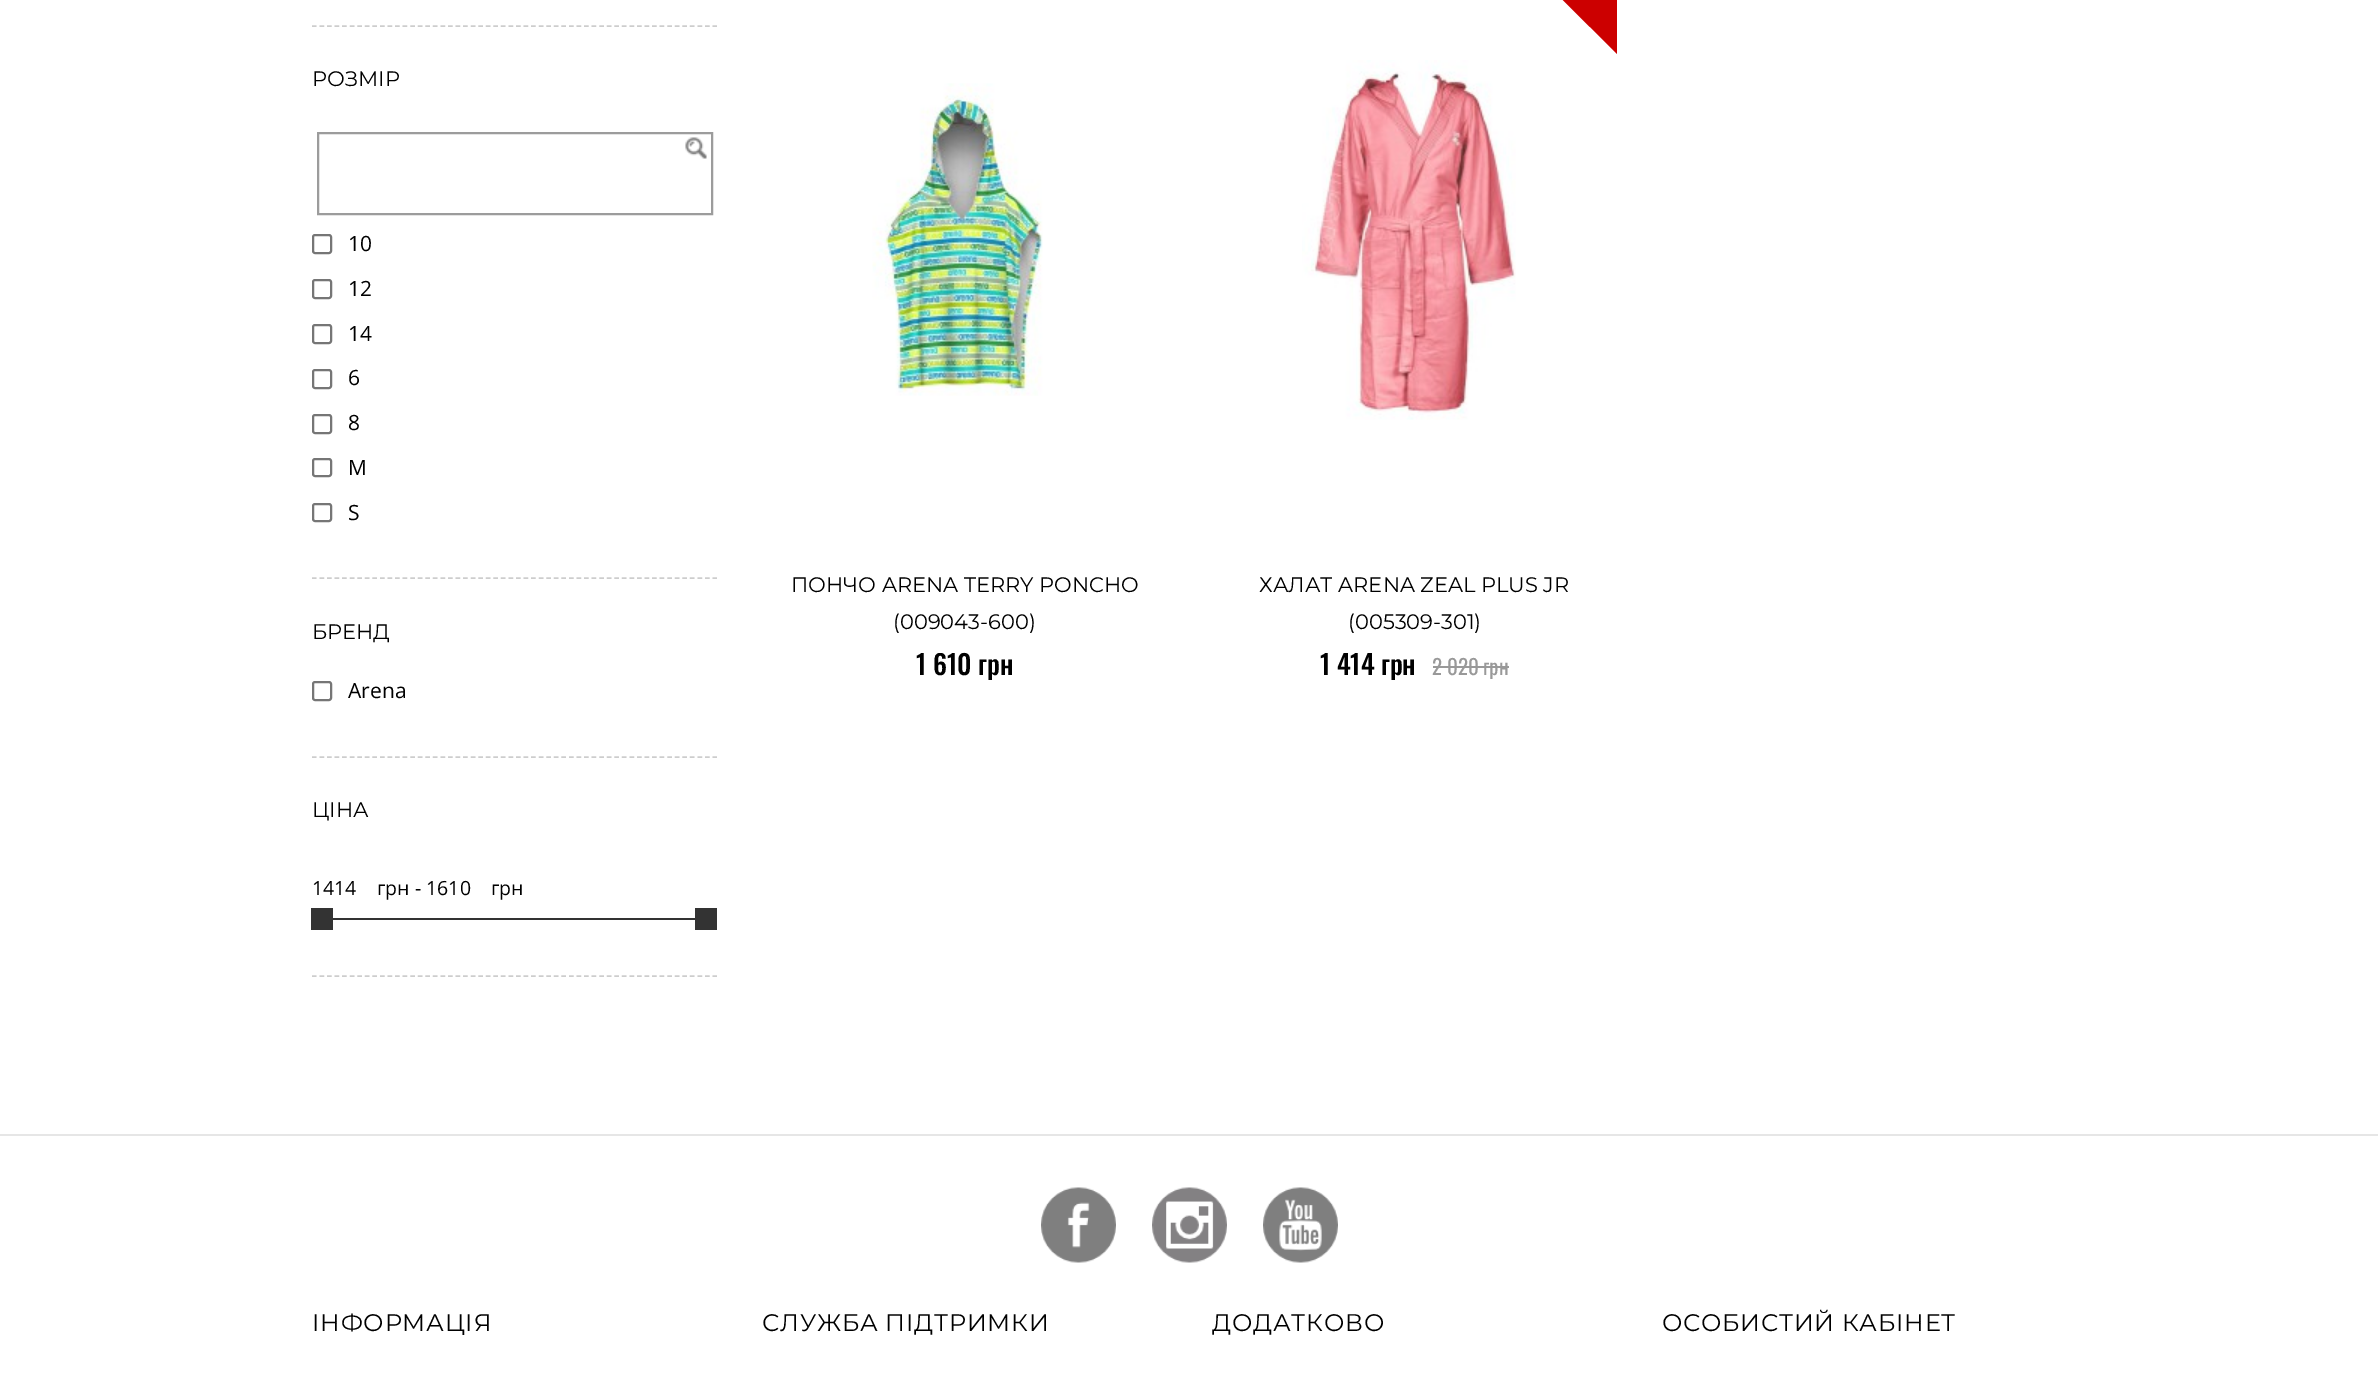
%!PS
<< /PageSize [2378 1386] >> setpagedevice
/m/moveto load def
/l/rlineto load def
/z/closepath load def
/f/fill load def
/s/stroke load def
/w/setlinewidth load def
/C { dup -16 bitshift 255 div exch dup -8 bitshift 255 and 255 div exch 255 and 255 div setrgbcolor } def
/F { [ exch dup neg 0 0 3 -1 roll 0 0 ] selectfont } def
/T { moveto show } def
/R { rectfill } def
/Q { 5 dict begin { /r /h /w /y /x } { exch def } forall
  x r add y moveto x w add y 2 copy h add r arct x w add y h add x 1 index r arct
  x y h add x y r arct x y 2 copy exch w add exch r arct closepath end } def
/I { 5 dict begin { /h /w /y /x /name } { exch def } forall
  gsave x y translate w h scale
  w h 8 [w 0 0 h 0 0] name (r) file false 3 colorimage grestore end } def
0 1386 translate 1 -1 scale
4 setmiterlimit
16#FFFFFF C
0 0 2378 1386 R
16#CDCDCD C
1.5 w
[4.5 3.06] 0 setdash
312 26 m 405 0 l s
312 578 m 405 0 l s
/Montserrat-Regular 21 F
16#000000 C
(РОЗМІР) 312 86 T
(1.rgb) 685 137 22 22 I
16#9C9C9C C
2 w
[] 0 setdash
318 133 394 81 rectstroke
16#767676 C
313 235 18 18 2 Q s
/OpenSans-Regular 21 F
16#000000 C
(10) 348 251 T
16#767676 C
313 280 18 18 2 Q s
16#000000 C
(12) 348 296 T
16#767676 C
313 325 18 18 2 Q s
16#000000 C
(14) 348 341 T
16#767676 C
313 370 18 18 2 Q s
16#000000 C
(6) 348 385 T
16#767676 C
313 415 18 18 2 Q s
16#000000 C
(8) 348 430 T
16#767676 C
313 459 18 17 2 Q s
16#000000 C
(M) 348 475 T
16#767676 C
313 504 18 17 2 Q s
16#000000 C
(S) 348 520 T
16#CDCDCD C
1.5 w
[4.5 3.06] 0 setdash
312 757 m 405 0 l s
/Montserrat-Regular 21 F
16#000000 C
(БРЕНД) 312 639 T
16#767676 C
2 w
[] 0 setdash
313 682 18 18 2 Q s
/OpenSans-Regular 21 F
16#000000 C
(Arena) 348 698 T
16#CDCDCD C
1.5 w
[4.5 3.06] 0 setdash
312 976 m 405 0 l s
/Montserrat-Regular 21 F
16#000000 C
(ЦІНА) 312 817 T
/OpenSans-Regular 19.5 F
(1414) 312 895 T
(грн - 1610) 377 895 T
(грн) 491 895 T
16#333333 C
311 908 22 22 R
333 918 362 2 R
695 908 22 22 R
(2.rgb) 872 83 171 313 I
/Montserrat-Regular 21 F
16#000000 C
(ПОНЧО ARENA TERRY PONCHO) 791 592 T
(\(009043-600\)) 893 629 T
/Oswald-Medium 27 F
(1 610 грн) 916 675 T
16#CC0000 C
1617 -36 m 0 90 l -90 -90 l z f
(3.rgb) 1302 60 214 360 I
/Montserrat-Regular 21 F
16#000000 C
(ХАЛАТ ARENA ZEAL PLUS JR) 1259 592 T
(\(005309-301\)) 1348 629 T
/Oswald-Medium 27 F
(1 414 грн) 1320 675 T
/Oswald-Regular 21 F
16#999999 C
(2 020 грн) 1432 675 T
1433 666 76 2 R
16#E6E6E6 C
0 1134 2378 2 R
(4.rgb) 1041 1187 75 76 I
(5.rgb) 1152 1187 75 76 I
(6.rgb) 1263 1187 75 76 I
/Montserrat-Regular 24 F
16#000000 C
312 1331 m .75 0 (ІНФОРМАЦІЯ) ashow
762 1331 m .75 0 (СЛУЖБА ПІДТРИМКИ) ashow
1212 1331 m .75 0 (ДОДАТКОВО) ashow
1662 1331 m .75 0 (ОСОБИСТИЙ КАБІНЕТ) ashow
showpage
